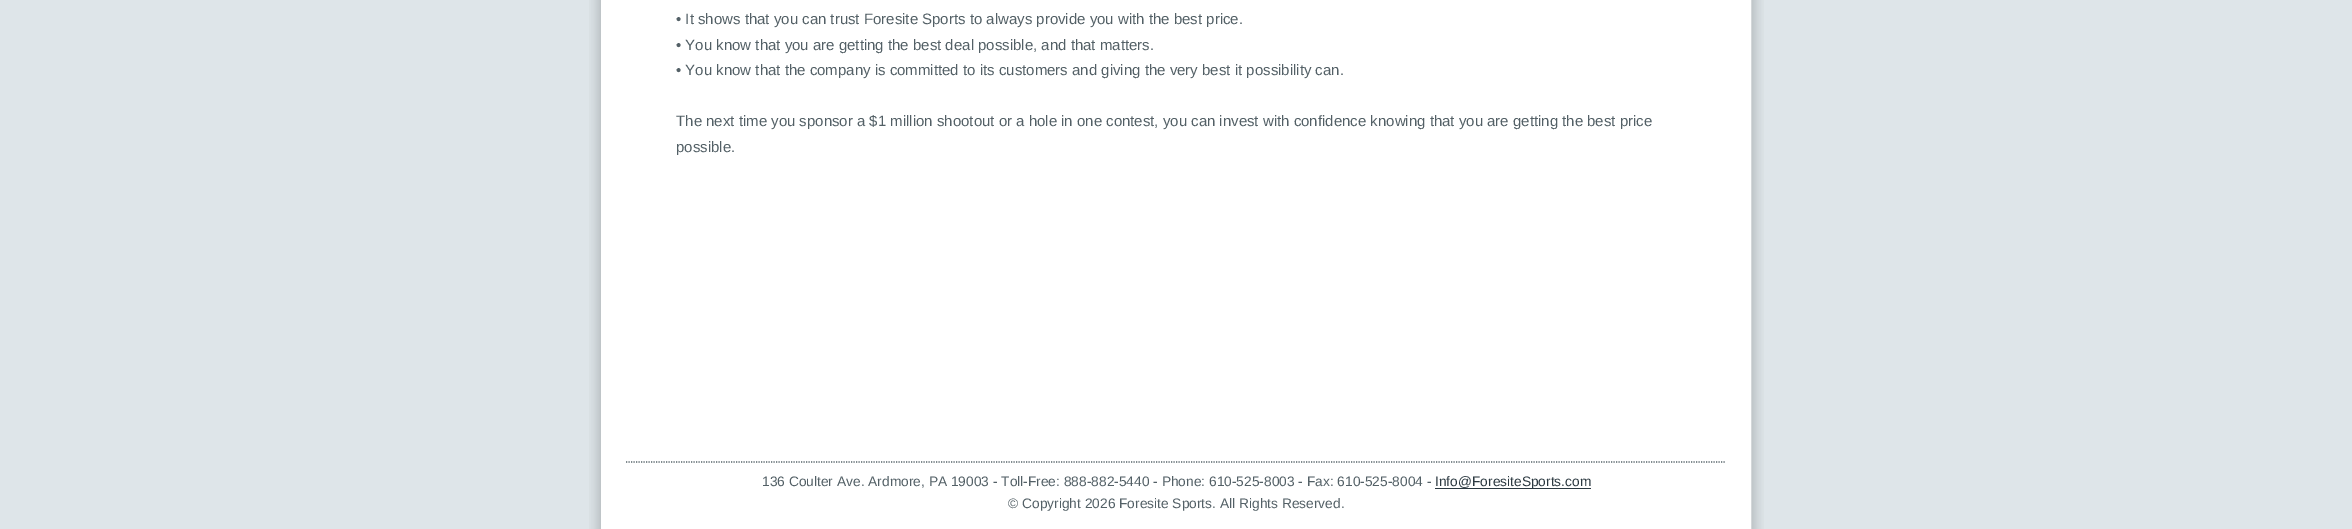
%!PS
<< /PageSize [2352 529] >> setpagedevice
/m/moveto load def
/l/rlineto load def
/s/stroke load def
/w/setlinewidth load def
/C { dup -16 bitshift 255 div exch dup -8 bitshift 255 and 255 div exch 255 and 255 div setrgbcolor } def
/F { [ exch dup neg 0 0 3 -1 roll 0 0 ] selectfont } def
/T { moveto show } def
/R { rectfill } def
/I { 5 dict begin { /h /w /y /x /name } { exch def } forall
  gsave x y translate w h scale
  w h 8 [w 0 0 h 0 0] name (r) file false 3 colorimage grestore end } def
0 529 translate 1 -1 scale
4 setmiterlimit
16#DEE5E9 C
0 0 2352 529 R
(1.rgb) 589 0 1175 529 I
16#FFFFFF C
601 0 1 529 R
/LiberationSans-Regular 15 F
16#536066 C
(• It shows that you can trust Foresite Sports to always provide you with the best price.) 676 24 T
(• You know that you are getting the best deal possible, and that matters.) 676 50 T
(• You know that the company is committed to its customers and giving the very best it possibility can.) 676 75 T
(The next time you sponsor a $1 million shootout or a hole in one contest, you can invest with confidence knowing that you are getting the best price) 676 126 T
(possible.) 676 152 T
1.2 w
[1.25 1.25] 0 setdash
626 462 m 1100 0 l s
/LiberationSans-Regular 13.75 F
(136 Coulter Ave. Ardmore, PA 19003 - Toll-Free: 888-882-5440 - Phone: 610-525-8003 - Fax: 610-525-8004 -) 762 486 T
16#2B3840 C
1435 488 156 1 R
(Info@ForesiteSports.com) 1435 486 T
16#536066 C
(© Copyright 2026 Foresite Sports. All Rights Reserved.) 1008 508 T
showpage
